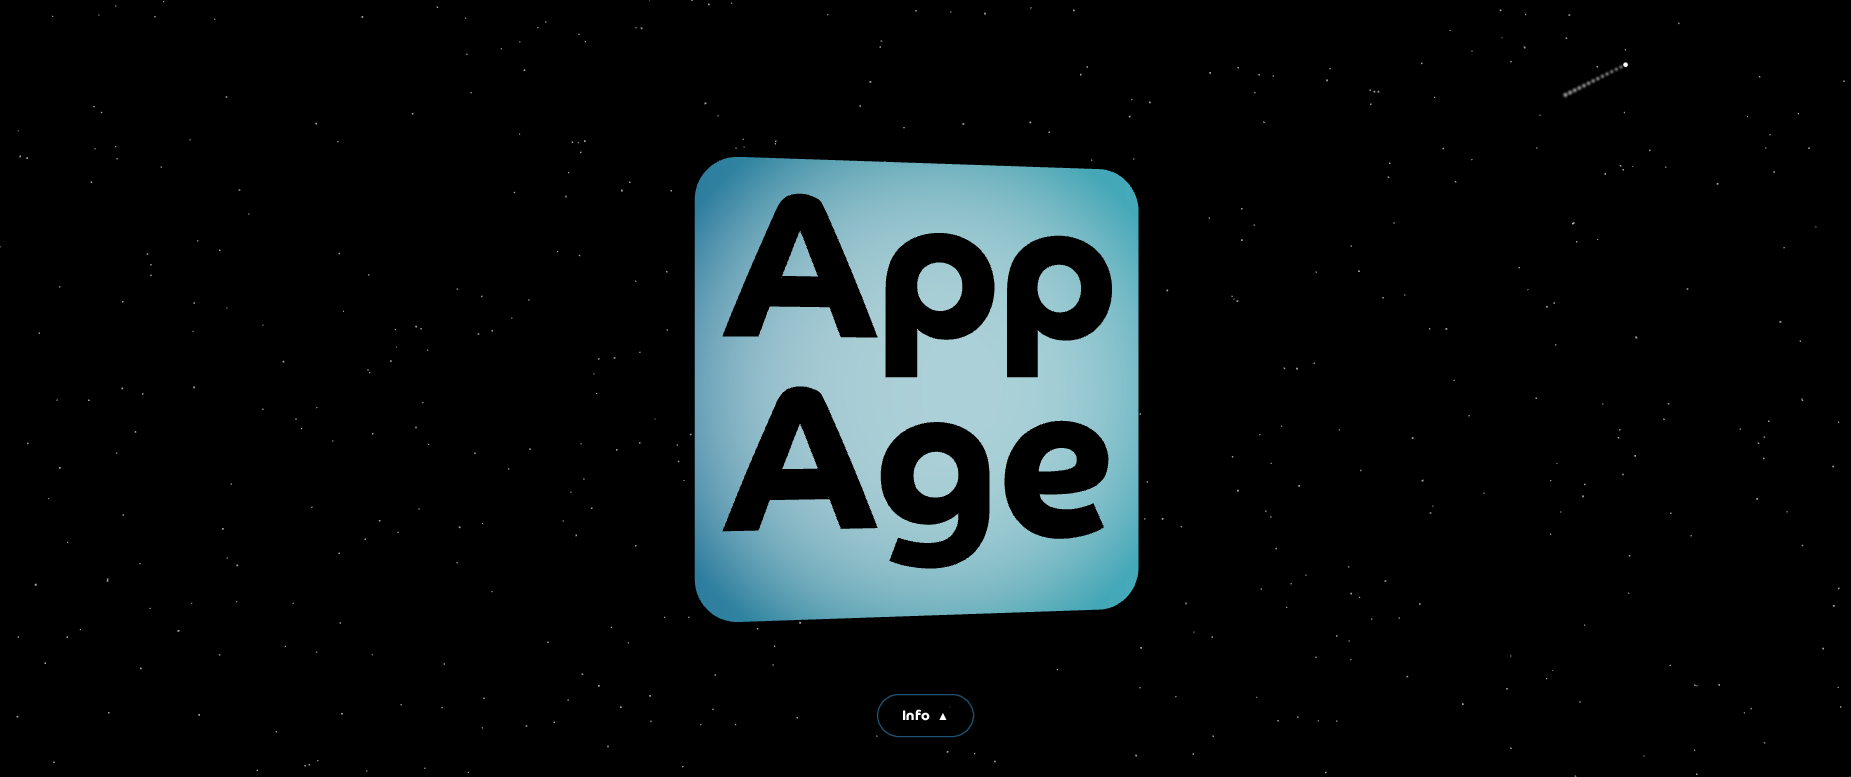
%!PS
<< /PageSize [1851 777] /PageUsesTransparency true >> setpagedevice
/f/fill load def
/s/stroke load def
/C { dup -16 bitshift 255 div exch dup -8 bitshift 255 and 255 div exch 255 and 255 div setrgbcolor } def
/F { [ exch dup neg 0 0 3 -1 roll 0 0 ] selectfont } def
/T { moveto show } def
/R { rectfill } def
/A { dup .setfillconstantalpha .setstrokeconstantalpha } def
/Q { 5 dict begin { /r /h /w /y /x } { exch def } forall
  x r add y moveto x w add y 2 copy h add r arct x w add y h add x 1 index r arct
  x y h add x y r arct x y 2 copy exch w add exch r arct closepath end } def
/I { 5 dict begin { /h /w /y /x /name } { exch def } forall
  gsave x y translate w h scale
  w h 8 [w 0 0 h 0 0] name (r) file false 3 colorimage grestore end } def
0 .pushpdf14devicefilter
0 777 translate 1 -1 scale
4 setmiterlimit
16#FFFFFF C
0 0 1851 777 R
(1.rgb) 0 0 1851 777 I
0.7 A
16#000000 C
877.5 694.5 96 42 21 Q f
1 A
16#1F5272 C
877.5 694.5 96 42 21 Q s
/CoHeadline-Bold 14 F
16#FFFFFF C
(Info) 902 720 T
/LiberationSans-Regular 12 F
(▲) 937 720 T
.poppdf14devicefilter showpage
